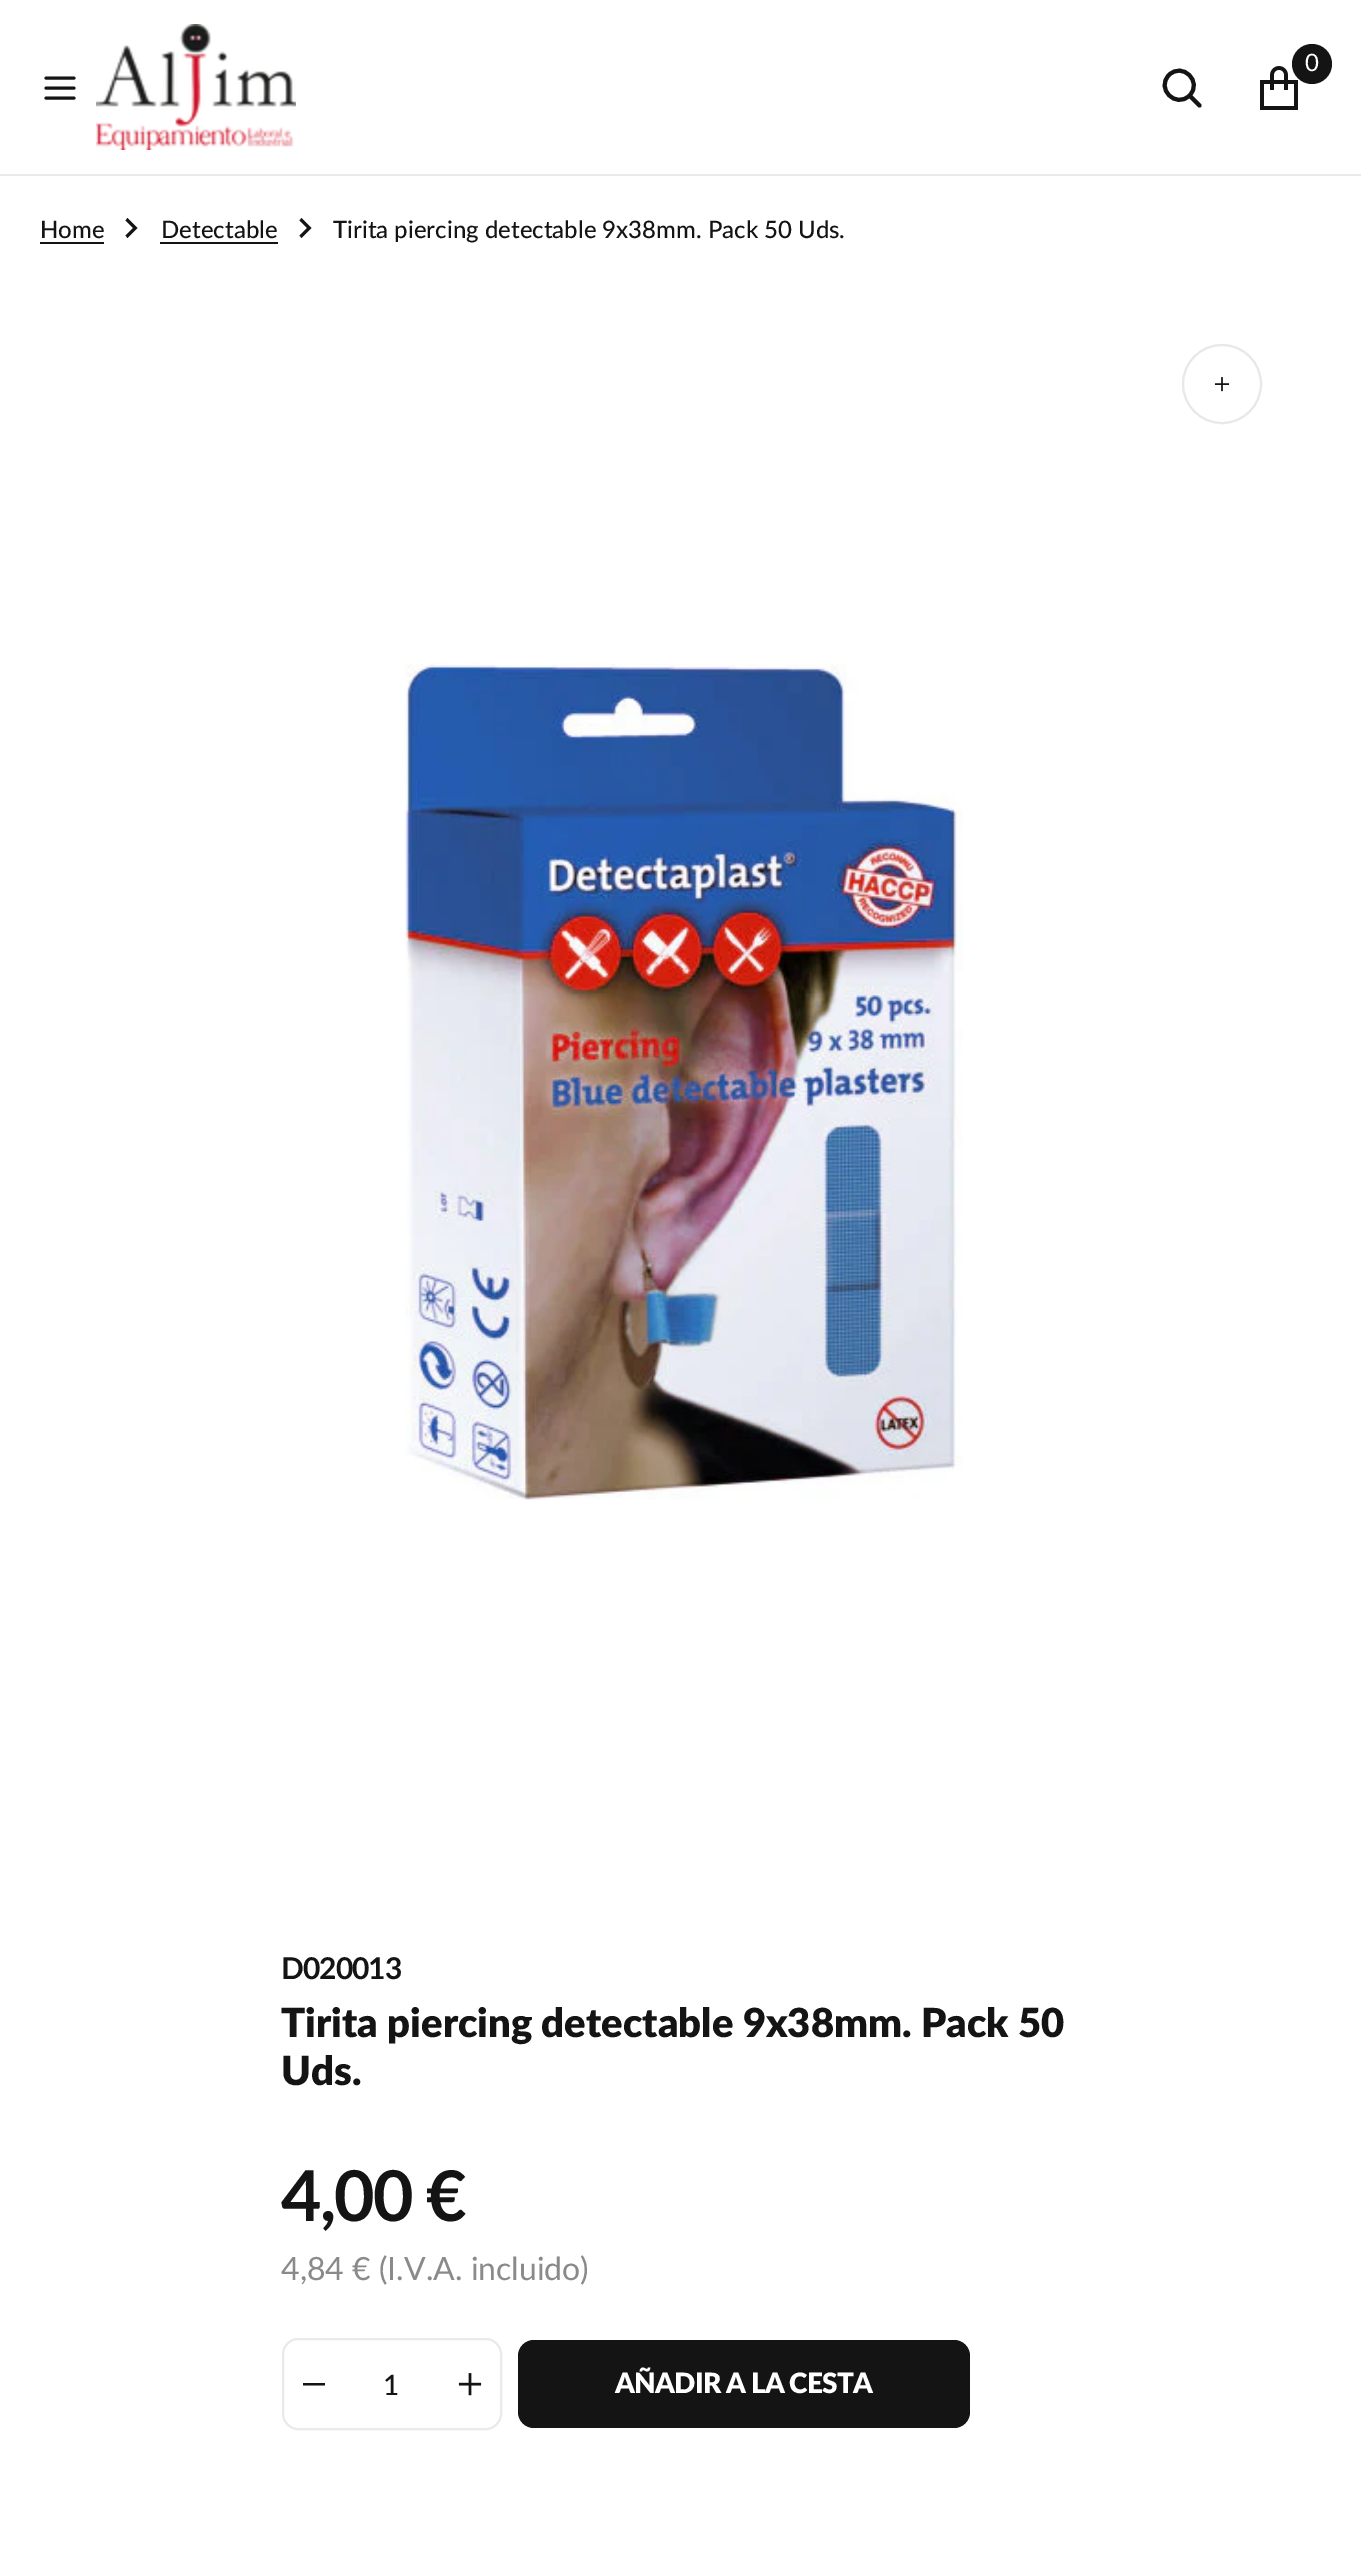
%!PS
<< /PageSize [1361 2559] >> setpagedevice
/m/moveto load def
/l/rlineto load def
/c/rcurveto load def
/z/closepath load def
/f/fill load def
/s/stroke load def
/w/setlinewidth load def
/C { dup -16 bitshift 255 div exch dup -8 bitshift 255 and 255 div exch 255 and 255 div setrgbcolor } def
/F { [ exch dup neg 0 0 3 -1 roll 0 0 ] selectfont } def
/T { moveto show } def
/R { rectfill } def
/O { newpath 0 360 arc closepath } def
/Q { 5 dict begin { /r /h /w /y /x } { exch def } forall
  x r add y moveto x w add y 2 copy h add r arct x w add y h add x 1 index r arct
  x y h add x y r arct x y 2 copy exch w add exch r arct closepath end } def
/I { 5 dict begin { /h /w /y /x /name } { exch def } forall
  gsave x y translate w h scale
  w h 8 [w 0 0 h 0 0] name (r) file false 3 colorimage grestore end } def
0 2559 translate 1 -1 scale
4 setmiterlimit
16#FFFFFF C
0 0 1361 2559 R
16#EAEAEA C
0 174 1361 2 R
(1.rgb) 96 24 200 126 I
(2.rgb) 1260 66 38 44 I
16#141414 C
1312 64 20 O f
/Lato-Regular 24 F
16#FFFFFF C
(0) 1305 71 T
16#141414 C
4 w
1 setlinecap
1 setlinejoin
1199.5 105.5 m -10 -10 l 1189.5 95.5 m 13.5 -13.5 -7 -34 -20.5 -20.5 c -13.5 13.5 7 34 20.5 20.5 c z s
3 w
46 88 m 28 0 l 46 78 m 28 0 l 46 98 m 28 0 l s
/Lato-Medium 24 F
(Home) 40 238 T
40 242 64 2 R
137.5 228 m -10 10 l -2 -2.5 l 7.5 -7.5 l -7.5 -7.5 l 2 -2.5 l z f
(Detectable) 161 238 T
160 242 118 2 R
311.5 228 m -10 10 l -2 -2.5 l 7.5 -7.5 l -7.5 -7.5 l 2 -2.5 l z f
(Tirita piercing detectable 9x38mm. Pack 50 Uds.) 333 238 T
16#E8E8E8 C
2 w
0 setlinecap
0 setlinejoin
1222 384 39 O s
(3.rgb) 1214 377 16 15 I
(4.rgb) 404 663 559 837 I
/Lato-Bold 30 F
16#141414 C
281 1979 m -1 0 (D020013) ashow
/Lato-ExtraBold 40 F
(Tirita piercing detectable 9x38mm. Pack 50) 281 2037 T
(Uds.) 281 2085 T
/Lato-Bold 70 F
281 2221 m -2 0 (4,00 €) ashow
/Lato-Regular 32 F
16#8A8A8A C
(4,84 € \(I.V.A. incluido\)) 281 2280 T
16#EAEAEA C
283 2339 218 90 15 Q s
16#141414 C
315.5 2385.5 m -12.5 0 l 0 -2.5 l 22 0 l 0 2.5 l z f
/Lato-Medium 28 F
(1) 383 2395 T
(5.rgb) 458 2373 24 23 I
518 2340 452 88 16 Q f
/Lato-ExtraBold 28 F
16#FFFFFF C
615 2393 m -.8 0 (AÑADIR A LA CESTA) ashow
showpage
